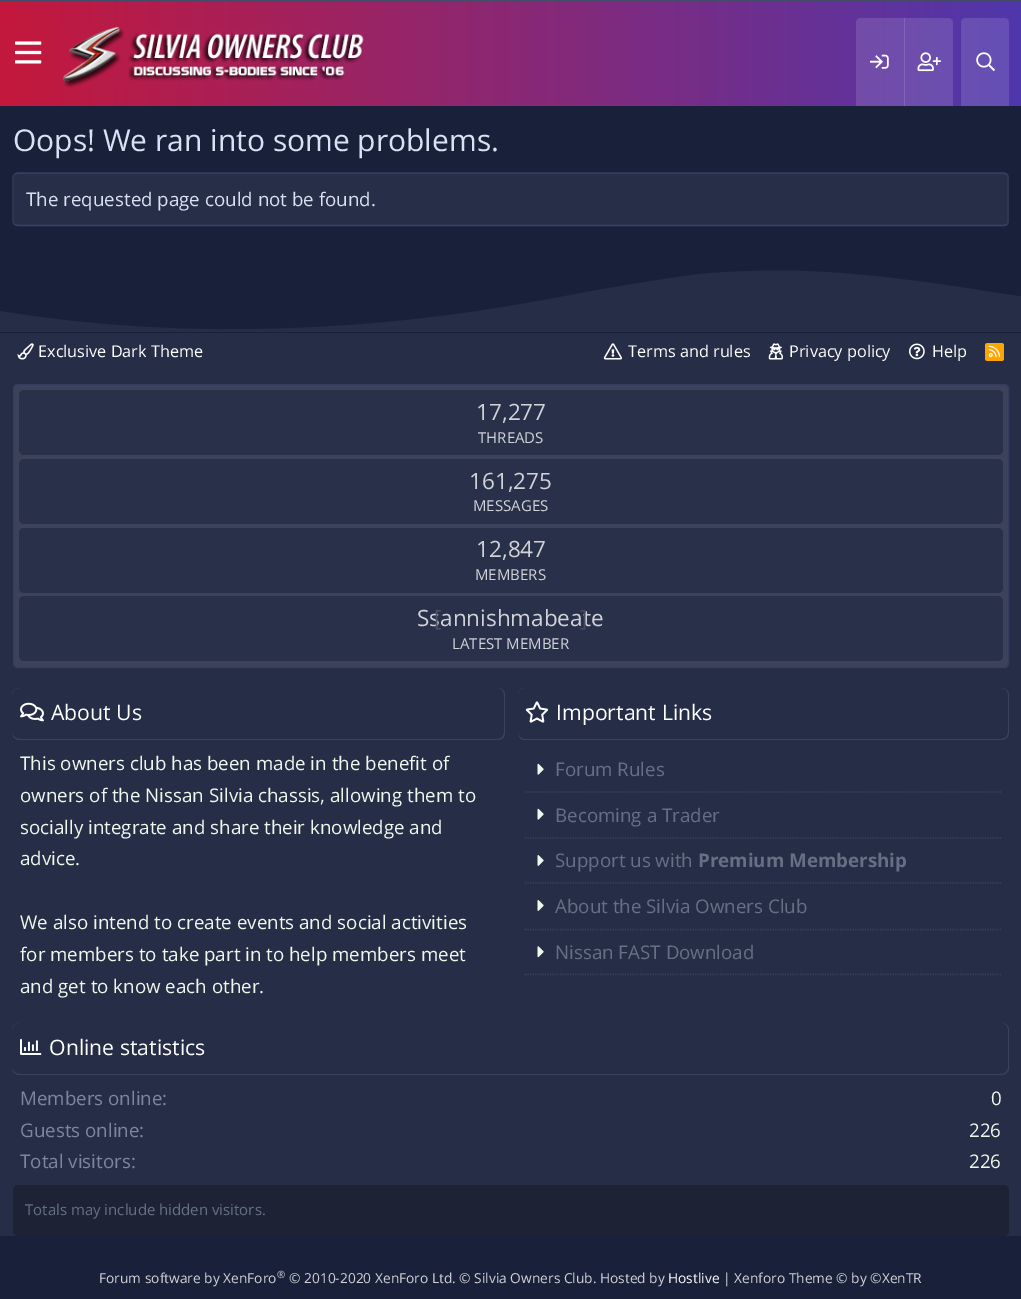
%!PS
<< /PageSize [1021 1299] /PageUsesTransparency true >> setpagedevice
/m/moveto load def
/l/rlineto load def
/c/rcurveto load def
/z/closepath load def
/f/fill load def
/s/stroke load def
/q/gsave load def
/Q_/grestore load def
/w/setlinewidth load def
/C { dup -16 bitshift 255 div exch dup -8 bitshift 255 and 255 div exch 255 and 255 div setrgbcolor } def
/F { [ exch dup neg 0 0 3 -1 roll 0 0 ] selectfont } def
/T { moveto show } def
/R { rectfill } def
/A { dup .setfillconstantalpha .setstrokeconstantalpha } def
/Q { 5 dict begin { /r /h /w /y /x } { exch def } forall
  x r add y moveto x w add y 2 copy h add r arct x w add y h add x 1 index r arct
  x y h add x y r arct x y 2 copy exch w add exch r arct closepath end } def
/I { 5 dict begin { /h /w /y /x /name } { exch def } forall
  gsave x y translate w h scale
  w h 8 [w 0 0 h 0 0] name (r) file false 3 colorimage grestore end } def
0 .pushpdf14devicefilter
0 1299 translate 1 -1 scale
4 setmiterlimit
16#182139 C
0 0 1021 1299 R
16#434B68 C
0 0 1021 1 R
q 0 1 m 1021 0 l 0 105 l -1021 0 l z clip newpath
<< /ShadingType 2 /ColorSpace /DeviceRGB /Coords [0 54 1021 54] /Extend [true true] /Function << /FunctionType 2 /Domain [0 1] /C0 [.769 .094 .235] /C1 [.31 .216 .675] /N 1 >> >> shfill Q_
(1.rgb) 15 41 27 23 I
(2.rgb) 63 27 301 61 I
0.15 A
16#DAE1F3 C
861 18 m 87 0 l 3 0 5 2 5 5 c 0 83 l -97 0 l 0 -83 l 0 -3 2 -5 5 -5 c z f
1 A
(3.rgb) 870 54 19 15 I
16#7F63B6 C
904 18 1 88 R
(4.rgb) 917 52 24 20 I
0.15 A
16#DAE1F3 C
966 18 m 38 0 l 3 0 5 2 5 5 c 0 83 l -48 0 l 0 -83 l 0 -3 2 -5 5 -5 c z f
1 A
(5.rgb) 976 52 19 19 I
/OpenSans-Regular 30 F
(Oops! We ran into some problems.) 13 151 T
16#272E48 C
13 173 996 53 5 Q f
16#374166 C
1.2 w
14.5 174.5 m 3 -1.5 l 986.5 0 l 3 1.5 l s
16#303959 C
1007 174.5 m .5 .5 1 2 1 3 c 0 43.5 l 0 1.5 -.5 2.5 -1 3.5 c s
16#394369 C
1007 224.5 m -3 1 l -986.5 0 l -3 -1 l s
16#303959 C
14.5 224.5 m -1 -1 -1.5 -2 -1.5 -3.5 c 0 -43.5 l 0 -1 .5 -2.5 1.5 -3 c s
/OpenSans-Regular 18.75 F
16#DAE1F3 C
(The requested page could not be found.) 26 206 T
16#262D47 C
292 328 m 82 -3 162 -11 268 -31 c 41 -8 107 -19 140 -23 c 32 -3 73 -4 105 -3 c 14 1 31 1 69 5 c 38 4 81 10 111 15 c 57 10 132 14 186 14 c 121 1 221 -19 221 -19 c 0 46 l -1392 0 l 0 -21 l 96 16 195 21 292 17 c z f
0 333 1021 43 R
(6.rgb) 17 343 17 17 I
/OpenSans-Regular 16.25 F
16#FFFFFF C
(Exclusive Dark Theme) 38 357 T
(7.rgb) 603 343 19 17 I
(Terms and rules) 628 357 T
(8.rgb) 768 343 15 17 I
(Privacy policy) 789 357 T
(9.rgb) 909 343 16 17 I
(Help) 932 357 T
16#FFA500 C
985 343 19 18 2.5 Q f
(10.rgb) 988 345 13 13 I
16#262D46 C
0 376 1021 860 R
16#3C4259 C
13 384 996 284 5 Q f
0.9 A
16#343D5F C
1 w
13.5 384.5 995 283 4.5 Q s
1 A
16#29304A C
19 390 984 65 5 Q f
/OpenSans-Regular 22.5 F
16#D1D3D8 C
(17,277) 476 420 T
/OpenSans-Regular 15 F
(THREADS) 478 443 T
16#29304A C
19 459 984 65 5 Q f
/OpenSans-Regular 22.5 F
16#D1D3D8 C
(161,275) 469 489 T
/OpenSans-Regular 15 F
(MESSAGES) 473 511 T
16#29304A C
19 528 984 65 5 Q f
/OpenSans-Regular 22.5 F
16#D1D3D8 C
(12,847) 476 557 T
/OpenSans-Regular 15 F
(MEMBERS) 475 580 T
16#29304A C
19 596 984 65 5 Q f
/OpenSans-Regular 22.5 F
16#D1D3D8 C
(Ssannishmabeate) 417 626 T
16#4C5268 C
([) 434 626 T
16#454B61 C
(]) 580 626 T
/OpenSans-Regular 15 F
16#D1D3D8 C
(LATEST MEMBER) 452 649 T
16#3C4259 C
20 688 m 478 0 l 4 0 7 3 7 7 c 0 37 l 0 5 -3 8 -7 8 c -478 0 l -4 0 -8 -3 -8 -8 c 0 -37 l 0 -4 4 -7 8 -7 c z 20 688 m 478 0 l 3 0 6 3 6 7 c 0 37 l 0 4 -3 7 -6 7 c -478 0 l -4 0 -8 -3 -8 -7 c 0 -37 l 0 -4 4 -7 8 -7 c z eofill
(11.rgb) 20 702 24 20 I
/OpenSans-Regular 21.25 F
16#FFFFFF C
(About Us) 51 720 T
/OpenSans-Regular 18.75 F
16#EEF8ED C
(This owners club has been made in the benefit of) 20 770 T
(owners of the Nissan Silvia chassis, allowing them to) 20 802 T
(socially integrate and share their knowledge and) 20 834 T
(advice.) 20 865 T
(We also intend to create events and social activities) 20 929 T
(for members to take part in to help members meet) 20 961 T
(and get to know each other.) 20 993 T
16#3C4259 C
525 688 m 476 0 l 4 0 8 3 8 7 c 0 37 l 0 5 -4 8 -8 8 c -476 0 l -4 0 -7 -3 -7 -8 c 0 -37 l 0 -4 3 -7 7 -7 c z 525 688 m 476 0 l 4 0 7 3 7 7 c 0 37 l 0 4 -3 7 -7 7 c -476 0 l -4 0 -7 -3 -7 -7 c 0 -37 l 0 -4 3 -7 7 -7 c z eofill
(12.rgb) 525 701 23 22 I
/OpenSans-Regular 21.25 F
16#FFFFFF C
(Important Links) 556 720 T
16#3C4259 C
1.2 w
[1.25 1.25] 0 setdash
525 792 m 476 0 l s
(13.rgb) 537 763 7 12 I
/OpenSans-Regular 18.75 F
16#667084 C
(Forum Rules) 555 776 T
16#3C4259 C
525 838 m 476 0 l s
(13.rgb) 537 808 7 12 I
16#667084 C
(Becoming a Trader) 555 822 T
16#3C4259 C
525 883 m 476 0 l s
(14.rgb) 537 855 7 11 I
16#667084 C
(Support us with) 555 867 T
/OpenSans-Bold 18.75 F
(Premium Membership) 698 867 T
16#3C4259 C
525 929.5 m 476 0 l s
(14.rgb) 537 900 7 11 I
/OpenSans-Regular 18.75 F
16#667084 C
(About the Silvia Owners Club) 555 913 T
16#3C4259 C
525 974.5 m 476 0 l s
(15.rgb) 537 946 7 12 I
16#667084 C
(Nissan FAST Download) 555 959 T
16#3C4259 C
20 1022 m 981 0 l 4 0 8 4 8 8 c 0 38 l 0 4 -4 7 -8 7 c -981 0 l -4 0 -8 -3 -8 -7 c 0 -38 l 0 -4 4 -8 8 -8 c z 20 1022 m 981 0 l 4 0 7 4 7 8 c 0 38 l 0 3 -3 6 -7 6 c -981 0 l -4 0 -8 -3 -8 -6 c 0 -38 l 0 -4 4 -8 8 -8 c z eofill
(16.rgb) 20 1039 22 16 I
/OpenSans-Regular 21.25 F
16#FFFFFF C
(Online statistics) 49 1055 T
/OpenSans-Regular 18.75 F
16#7C869D C
(Members online:) 20 1105 T
16#EEF8ED C
(0) 991 1105 T
16#7C869D C
(Guests online:) 20 1137 T
16#EEF8ED C
(226) 969 1137 T
16#7C869D C
(Total visitors:) 20 1168 T
16#EEF8ED C
(226) 969 1168 T
16#1D2235 C
13 1185 996 51 5 Q f
/OpenSans-Regular 15 F
16#667084 C
(Totals may include hidden visitors.) 25 1215 T
/OpenSans-Regular 13.75 F
16#D1D3D8 C
(Forum software by XenForo) 99 1283 T
/OpenSans-Regular 10 F
(®) 277 1278 T
/OpenSans-Regular 13.75 F
(© 2010-2020 XenForo Ltd. © Silvia Owners Club. Hosted by) 289 1283 T
16#FFFFFF C
(Hostlive) 668 1283 T
16#D1D3D8 C
(| Xenforo Theme © by ©XenTR) 723 1283 T
.poppdf14devicefilter showpage
